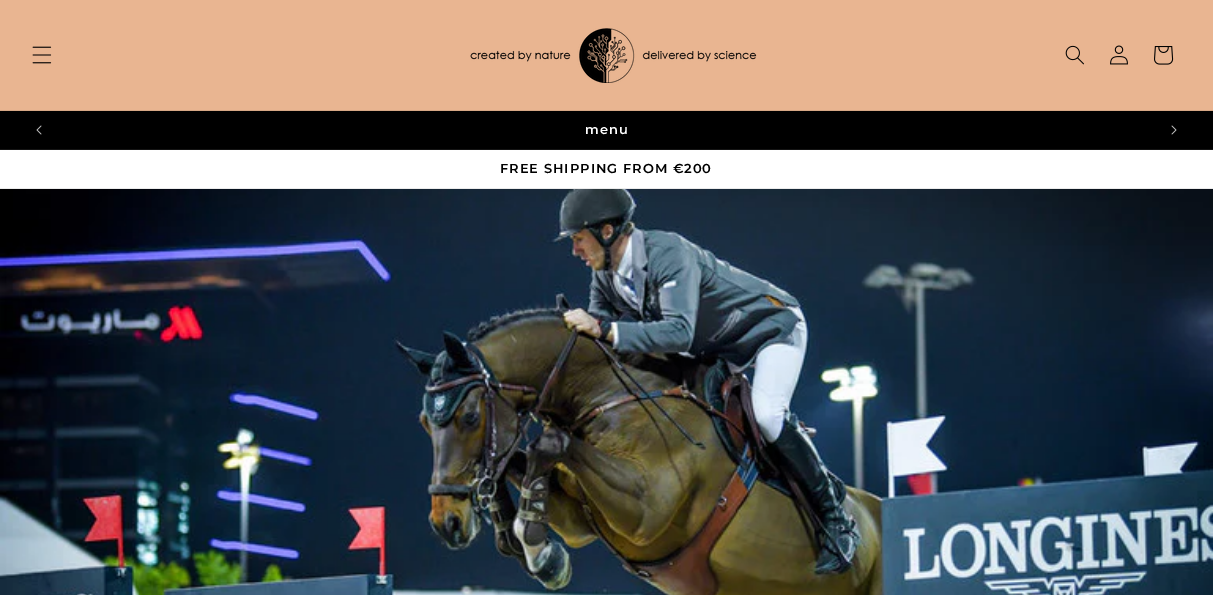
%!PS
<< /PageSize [1213 595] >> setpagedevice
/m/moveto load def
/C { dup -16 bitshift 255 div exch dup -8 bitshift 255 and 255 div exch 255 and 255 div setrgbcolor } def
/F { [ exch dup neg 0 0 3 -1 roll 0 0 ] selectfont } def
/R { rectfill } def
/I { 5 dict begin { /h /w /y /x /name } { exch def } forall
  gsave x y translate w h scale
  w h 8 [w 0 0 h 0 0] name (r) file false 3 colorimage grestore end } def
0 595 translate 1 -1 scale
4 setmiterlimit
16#FFFFFF C
0 0 1213 595 R
16#E9B591 C
0 0 1213 110 R
16#D6A785 C
0 110 1213 1 R
(1.rgb) 32 46 20 18 I
(2.rgb) 470 28 287 55 I
(3.rgb) 1065 45 19 20 I
(4.rgb) 1110 45 18 20 I
(5.rgb) 1154 46 20 19 I
16#000000 C
0 111 1213 38 R
16#141414 C
0 149 1213 1 R
(6.rgb) 36 125 6 10 I
/Montserrat-SemiBold 13 F
16#FFFFFF C
585 134 m 1 0 (menu) ashow
(7.rgb) 1171 125 6 10 I
16#EBEBEB C
0 188 1213 1 R
16#000000 C
500 173 m 1 0 (FREE SHIPPING FROM €200) ashow
(8.rgb) 0 189 1213 406 I
showpage
